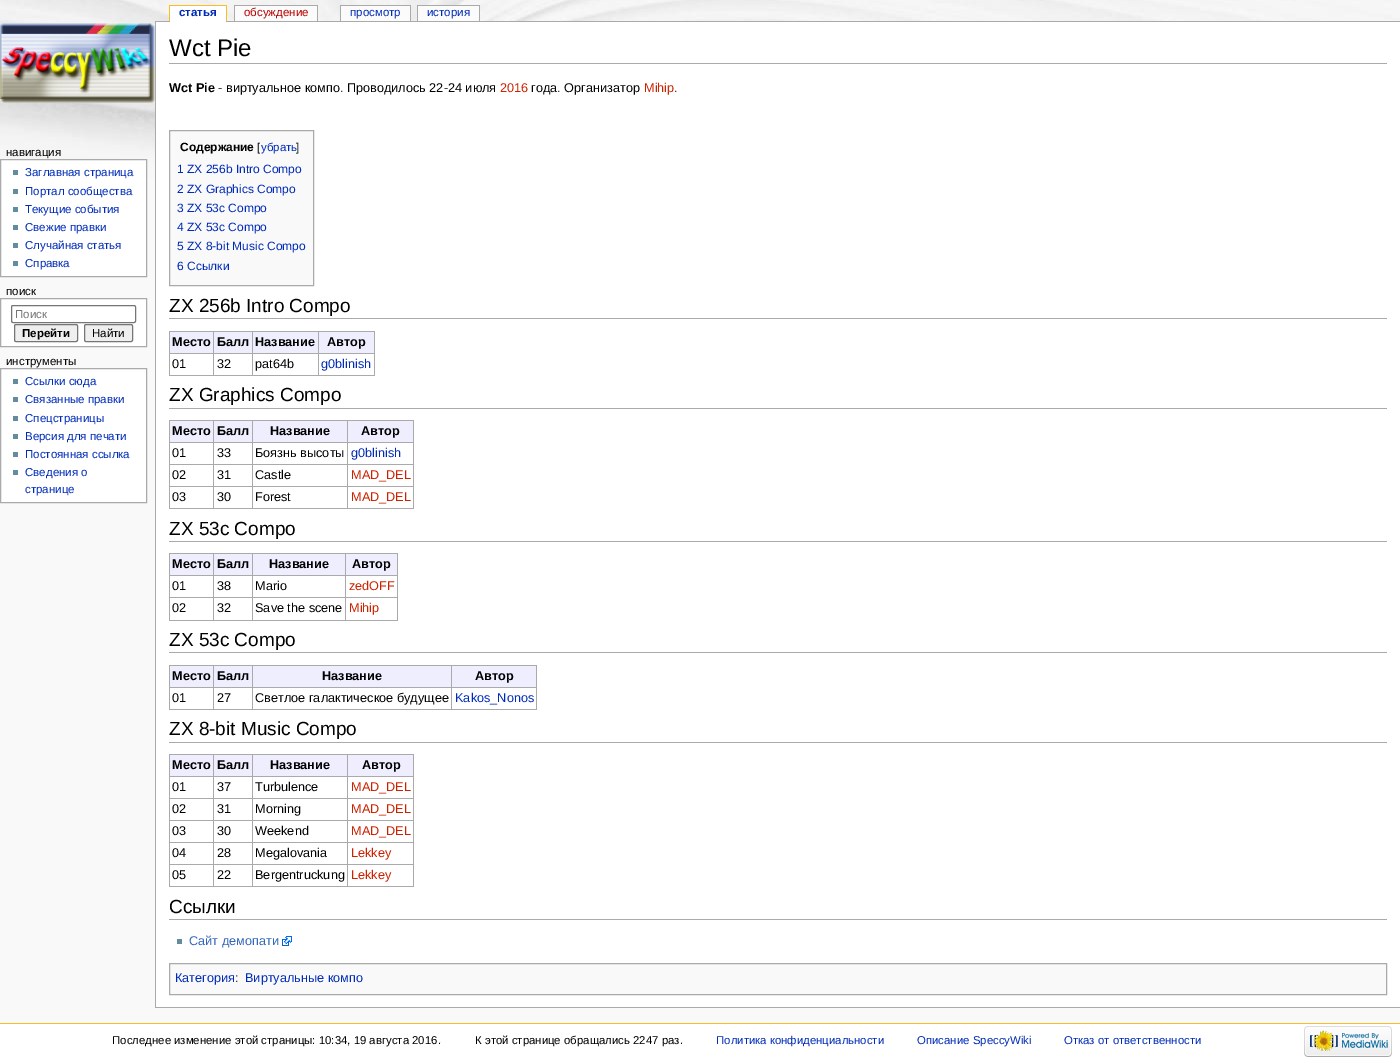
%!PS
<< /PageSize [1400 1061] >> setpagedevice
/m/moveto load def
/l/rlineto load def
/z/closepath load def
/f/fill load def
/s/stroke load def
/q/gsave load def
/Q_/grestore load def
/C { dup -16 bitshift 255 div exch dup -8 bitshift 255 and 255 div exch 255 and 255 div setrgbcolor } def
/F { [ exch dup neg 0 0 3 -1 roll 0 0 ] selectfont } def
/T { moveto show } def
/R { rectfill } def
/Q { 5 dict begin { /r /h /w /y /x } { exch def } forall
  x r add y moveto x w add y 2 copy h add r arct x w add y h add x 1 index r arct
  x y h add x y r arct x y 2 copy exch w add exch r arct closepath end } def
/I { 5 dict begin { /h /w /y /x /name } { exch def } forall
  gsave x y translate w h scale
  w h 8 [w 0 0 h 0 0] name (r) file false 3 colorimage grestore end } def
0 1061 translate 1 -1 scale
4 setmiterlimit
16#F9F9F9 C
0 0 1400 1061 R
(1.rgb) 0 0 1400 179 I
16#AAAAAA C
155 21 1245 1 R
16#FFFFFF C
170 6 56 16 R
/LiberationSans-Bold 11.5 F
16#002BB8 C
(статья) 179 16 T
16#FABD23 C
169 5 58 1 R
226 5 1 16 R
169 5 1 16 R
16#FBFBFB C
235 6 82 15 R
/LiberationSans-Regular 11.5 F
16#BA0000 C
(обсуждение) 244 16 T
16#AAAAAA C
234 5 84 1 R
317 5 1 16 R
234 5 1 16 R
16#FBFBFB C
341 6 69 15 R
16#002BB8 C
(просмотр) 350 16 T
16#AAAAAA C
340 5 71 1 R
410 5 1 16 R
340 5 1 16 R
16#FBFBFB C
418 6 61 15 R
16#002BB8 C
(история) 427 16 T
16#AAAAAA C
417 5 63 1 R
479 5 1 16 R
417 5 1 16 R
(2.rgb) 0 23 155 80 I
16#000000 C
(навигация) 6 156 T
16#FFFFFF C
.5 159.5 m 146 0 l 0 117 l -146 0 l z q f Q_
16#AAAAAA C
s
16#638C9C C
13 170 5 5 R
16#002BB8 C
(Заглавная страница) 25 176 T
16#638C9C C
13 189 5 5 R
16#002BB8 C
(Портал сообщества) 25 195 T
16#638C9C C
13 207 5 5 R
16#002BB8 C
(Текущие события) 25 213 T
16#638C9C C
13 225 5 5 R
16#002BB8 C
(Свежие правки) 25 231 T
16#638C9C C
13 243 5 5 R
16#002BB8 C
(Случайная статья) 25 249 T
16#638C9C C
13 261 5 5 R
16#002BB8 C
(Справка) 25 267 T
16#000000 C
(поиск) 6 295 T
16#FFFFFF C
.5 298.5 m 146 0 l 0 48 l -146 0 l z q f Q_
16#AAAAAA C
s
16#767676 C
11.5 305.5 124 17 1.5 Q s
16#757575 C
(Поиск) 15 318 T
16#EFEFEF C
14.5 324.5 63 17 1.5 Q q f Q_
16#767676 C
s
/LiberationSans-Bold 11.5 F
16#000000 C
(Перейти) 22 337 T
16#EFEFEF C
84.5 324.5 48 17 1.5 Q q f Q_
16#767676 C
s
/LiberationSans-Regular 11.5 F
16#000000 C
(Найти) 92 337 T
(инструменты) 6 365 T
16#FFFFFF C
.5 368.5 m 146 0 l 0 134 l -146 0 l z q f Q_
16#AAAAAA C
s
16#638C9C C
13 379 5 5 R
16#002BB8 C
(Ссылки сюда) 25 385 T
16#638C9C C
13 397 5 5 R
16#002BB8 C
(Связанные правки) 25 403 T
16#638C9C C
13 416 5 5 R
16#002BB8 C
(Спецстраницы) 25 422 T
16#638C9C C
13 434 5 5 R
16#002BB8 C
(Версия для печати) 25 440 T
16#638C9C C
13 452 5 5 R
16#002BB8 C
(Постоянная ссылка) 25 458 T
16#638C9C C
13 470 5 5 R
16#002BB8 C
(Сведения о) 25 476 T
(странице) 25 493 T
16#FFFFFF C
156 22 1244 985 R
16#AAAAAA C
155 1007 1245 1 R
155 21 1 987 R
169 63 1218 1 R
/LiberationSans-Regular 24 F
16#000000 C
(Wct Pie) 169 56 T
/LiberationSans-Bold 12.7 F
(Wct Pie) 169 92 T
/LiberationSans-Regular 12.7 F
(- виртуальное компо. Проводилось 22-24 июля) 218 92 T
16#CC2200 C
(2016) 500 92 T
16#000000 C
(года. Организатор) 531 92 T
16#CC2200 C
(Mihip) 644 92 T
16#000000 C
(.) 674 92 T
16#F9F9F9 C
169.5 130.5 m 144 0 l 0 155 l -144 0 l z q f Q_
16#AAAAAA C
s
/LiberationSans-Bold 12 F
16#000000 C
(Содержание) 180 151 T
/LiberationSans-Regular 11.5 F
([) 257 151 T
16#002BB8 C
(убрать) 261 151 T
16#000000 C
(]) 296 151 T
/LiberationSans-Regular 12 F
16#002BB8 C
(1 ZX 256b Intro Compo) 177 173 T
(2 ZX Graphics Compo) 177 193 T
(3 ZX 53c Compo) 177 212 T
(4 ZX 53c Compo) 177 231 T
(5 ZX 8-bit Music Compo) 177 250 T
(6 Ссылки) 177 270 T
16#AAAAAA C
169 318 1218 1 R
/LiberationSans-Regular 19 F
16#000000 C
(ZX 256b Intro Compo) 169 312 T
16#AAAAAA C
169 331 206 1 R
374 331 1 45 R
169 375 206 1 R
169 331 1 45 R
16#EEEEFF C
170 332 43 21 R
/LiberationSans-Bold 12.7 F
16#000000 C
(Место) 172 346 T
16#EEEEFF C
214 332 38 21 R
16#AAAAAA C
318 353 57 1 R
318 353 1 23 R
252 353 67 1 R
252 353 1 23 R
213 353 40 1 R
213 353 1 23 R
169 353 45 1 R
213 331 1 23 R
16#000000 C
(Балл) 217 346 T
16#EEEEFF C
253 332 65 21 R
16#AAAAAA C
252 331 1 23 R
16#000000 C
(Название) 255 346 T
16#EEEEFF C
319 332 55 21 R
16#AAAAAA C
318 331 1 23 R
16#000000 C
(Автор) 327 346 T
/LiberationSans-Regular 12.7 F
(01) 172 368 T
(32) 217 368 T
(pat64b) 255 368 T
16#002BB8 C
(g0blinish) 321 368 T
16#AAAAAA C
169 408 1218 1 R
/LiberationSans-Regular 19 F
16#000000 C
(ZX Graphics Compo) 169 401 T
16#AAAAAA C
169 420 245 1 R
413 420 1 89 R
169 508 245 1 R
169 420 1 89 R
16#EEEEFF C
170 421 43 21 R
/LiberationSans-Bold 12.7 F
16#000000 C
(Место) 172 435 T
16#EEEEFF C
214 421 38 21 R
16#AAAAAA C
347 442 67 1 R
347 464 67 1 R
347 486 67 1 R
347 486 1 23 R
252 486 96 1 R
347 464 1 23 R
252 464 96 1 R
347 442 1 23 R
252 442 96 1 R
252 486 1 23 R
213 486 40 1 R
252 464 1 23 R
213 464 40 1 R
252 442 1 23 R
213 442 40 1 R
213 486 1 23 R
169 486 45 1 R
213 464 1 23 R
169 464 45 1 R
213 442 1 23 R
169 442 45 1 R
213 420 1 23 R
16#000000 C
(Балл) 217 435 T
16#EEEEFF C
253 421 94 21 R
16#AAAAAA C
252 420 1 23 R
16#000000 C
(Название) 270 435 T
16#EEEEFF C
348 421 65 21 R
16#AAAAAA C
347 420 1 23 R
16#000000 C
(Автор) 361 435 T
/LiberationSans-Regular 12.7 F
(01) 172 457 T
(33) 217 457 T
(Боязнь высоты) 255 457 T
16#002BB8 C
(g0blinish) 351 457 T
16#000000 C
(02) 172 479 T
(31) 217 479 T
(Castle) 255 479 T
16#CC2200 C
(MAD_DEL) 351 479 T
16#000000 C
(03) 172 501 T
(30) 217 501 T
(Forest) 255 501 T
16#CC2200 C
(MAD_DEL) 351 501 T
16#AAAAAA C
169 541 1218 1 R
/LiberationSans-Regular 19 F
16#000000 C
(ZX 53c Compo) 169 535 T
16#AAAAAA C
169 553 229 1 R
397 553 1 68 R
169 620 229 1 R
169 553 1 68 R
16#EEEEFF C
170 554 43 21 R
/LiberationSans-Bold 12.7 F
16#000000 C
(Место) 172 568 T
16#EEEEFF C
214 554 38 21 R
16#AAAAAA C
345 575 53 1 R
345 597 53 1 R
345 597 1 24 R
252 597 94 1 R
345 575 1 23 R
252 575 94 1 R
252 597 1 24 R
213 597 40 1 R
252 575 1 23 R
213 575 40 1 R
213 597 1 24 R
169 597 45 1 R
213 575 1 23 R
169 575 45 1 R
213 553 1 23 R
16#000000 C
(Балл) 217 568 T
16#EEEEFF C
253 554 92 21 R
16#AAAAAA C
252 553 1 23 R
16#000000 C
(Название) 269 568 T
16#EEEEFF C
346 554 51 21 R
16#AAAAAA C
345 553 1 23 R
16#000000 C
(Автор) 352 568 T
/LiberationSans-Regular 12.7 F
(01) 172 590 T
(38) 217 590 T
(Mario) 255 590 T
16#CC2200 C
(zedOFF) 349 590 T
16#000000 C
(02) 172 612 T
(32) 217 612 T
(Save the scene) 255 612 T
16#CC2200 C
(Mihip) 349 612 T
16#AAAAAA C
169 652 1218 1 R
/LiberationSans-Regular 19 F
16#000000 C
(ZX 53c Compo) 169 646 T
16#AAAAAA C
169 665 368 1 R
536 665 1 45 R
169 709 368 1 R
169 665 1 45 R
16#EEEEFF C
170 666 43 21 R
/LiberationSans-Bold 12.7 F
16#000000 C
(Место) 172 680 T
16#EEEEFF C
214 666 38 21 R
16#AAAAAA C
451 687 86 1 R
451 687 1 23 R
252 687 200 1 R
252 687 1 23 R
213 687 40 1 R
213 687 1 23 R
169 687 45 1 R
213 665 1 23 R
16#000000 C
(Балл) 217 680 T
16#EEEEFF C
253 666 198 21 R
16#AAAAAA C
252 665 1 23 R
16#000000 C
(Название) 322 680 T
16#EEEEFF C
452 666 84 21 R
16#AAAAAA C
451 665 1 23 R
16#000000 C
(Автор) 475 680 T
/LiberationSans-Regular 12.7 F
(01) 172 702 T
(27) 217 702 T
(Светлое галактическое будущее) 255 702 T
16#002BB8 C
(Kakos_Nonos) 455 702 T
16#AAAAAA C
169 742 1218 1 R
/LiberationSans-Regular 19 F
16#000000 C
(ZX 8-bit Music Compo) 169 735 T
16#AAAAAA C
169 754 245 1 R
413 754 1 133 R
169 886 245 1 R
169 754 1 133 R
16#EEEEFF C
170 755 43 21 R
/LiberationSans-Bold 12.7 F
16#000000 C
(Место) 172 769 T
16#EEEEFF C
214 755 38 21 R
16#AAAAAA C
347 776 67 1 R
347 798 67 1 R
347 820 67 1 R
347 842 67 1 R
347 864 67 1 R
347 864 1 23 R
252 864 96 1 R
347 842 1 23 R
252 842 96 1 R
347 820 1 23 R
252 820 96 1 R
347 798 1 23 R
252 798 96 1 R
347 776 1 23 R
252 776 96 1 R
252 864 1 23 R
213 864 40 1 R
252 842 1 23 R
213 842 40 1 R
252 820 1 23 R
213 820 40 1 R
252 798 1 23 R
213 798 40 1 R
252 776 1 23 R
213 776 40 1 R
213 864 1 23 R
169 864 45 1 R
213 842 1 23 R
169 842 45 1 R
213 820 1 23 R
169 820 45 1 R
213 798 1 23 R
169 798 45 1 R
213 776 1 23 R
169 776 45 1 R
213 754 1 23 R
16#000000 C
(Балл) 217 769 T
16#EEEEFF C
253 755 94 21 R
16#AAAAAA C
252 754 1 23 R
16#000000 C
(Название) 270 769 T
16#EEEEFF C
348 755 65 21 R
16#AAAAAA C
347 754 1 23 R
16#000000 C
(Автор) 362 769 T
/LiberationSans-Regular 12.7 F
(01) 172 791 T
(37) 217 791 T
(Turbulence) 255 791 T
16#CC2200 C
(MAD_DEL) 351 791 T
16#000000 C
(02) 172 813 T
(31) 217 813 T
(Morning) 255 813 T
16#CC2200 C
(MAD_DEL) 351 813 T
16#000000 C
(03) 172 835 T
(30) 217 835 T
(Weekend) 255 835 T
16#CC2200 C
(MAD_DEL) 351 835 T
16#000000 C
(04) 172 857 T
(28) 217 857 T
(Megalovania) 255 857 T
16#CC2200 C
(Lekkey) 351 857 T
16#000000 C
(05) 172 879 T
(22) 217 879 T
(Bergentruckung) 255 879 T
16#CC2200 C
(Lekkey) 351 879 T
16#AAAAAA C
169 919 1218 1 R
/LiberationSans-Regular 19 F
16#000000 C
(Ссылки) 169 913 T
16#638C9C C
177 939 5 5 R
/LiberationSans-Regular 12.7 F
16#3366BB C
(Сайт демопати) 189 945 T
(3.rgb) 282 936 10 10 I
16#F9F9F9 C
169.5 963.5 m 1217 0 l 0 31 l -1217 0 l z q f Q_
16#AAAAAA C
s
16#002BB8 C
(Категория) 175 982 T
16#000000 C
(:) 235 982 T
16#002BB8 C
(Виртуальные компо) 245 982 T
16#FFFFFF C
0 1024 1400 37 R
16#FABD23 C
0 1023 1400 1 R
/LiberationSans-Regular 11.4 F
16#000000 C
(Последнее изменение этой страницы: 10:34, 19 августа 2016.) 112 1044 T
(К этой странице обращались 2247 раз.) 475 1044 T
16#002BB8 C
(Политика конфиденциальности) 716 1044 T
(Описание SpeccyWiki) 917 1044 T
(Отказ от ответственности) 1064 1044 T
(4.rgb) 1304 1026 88 31 I
showpage
